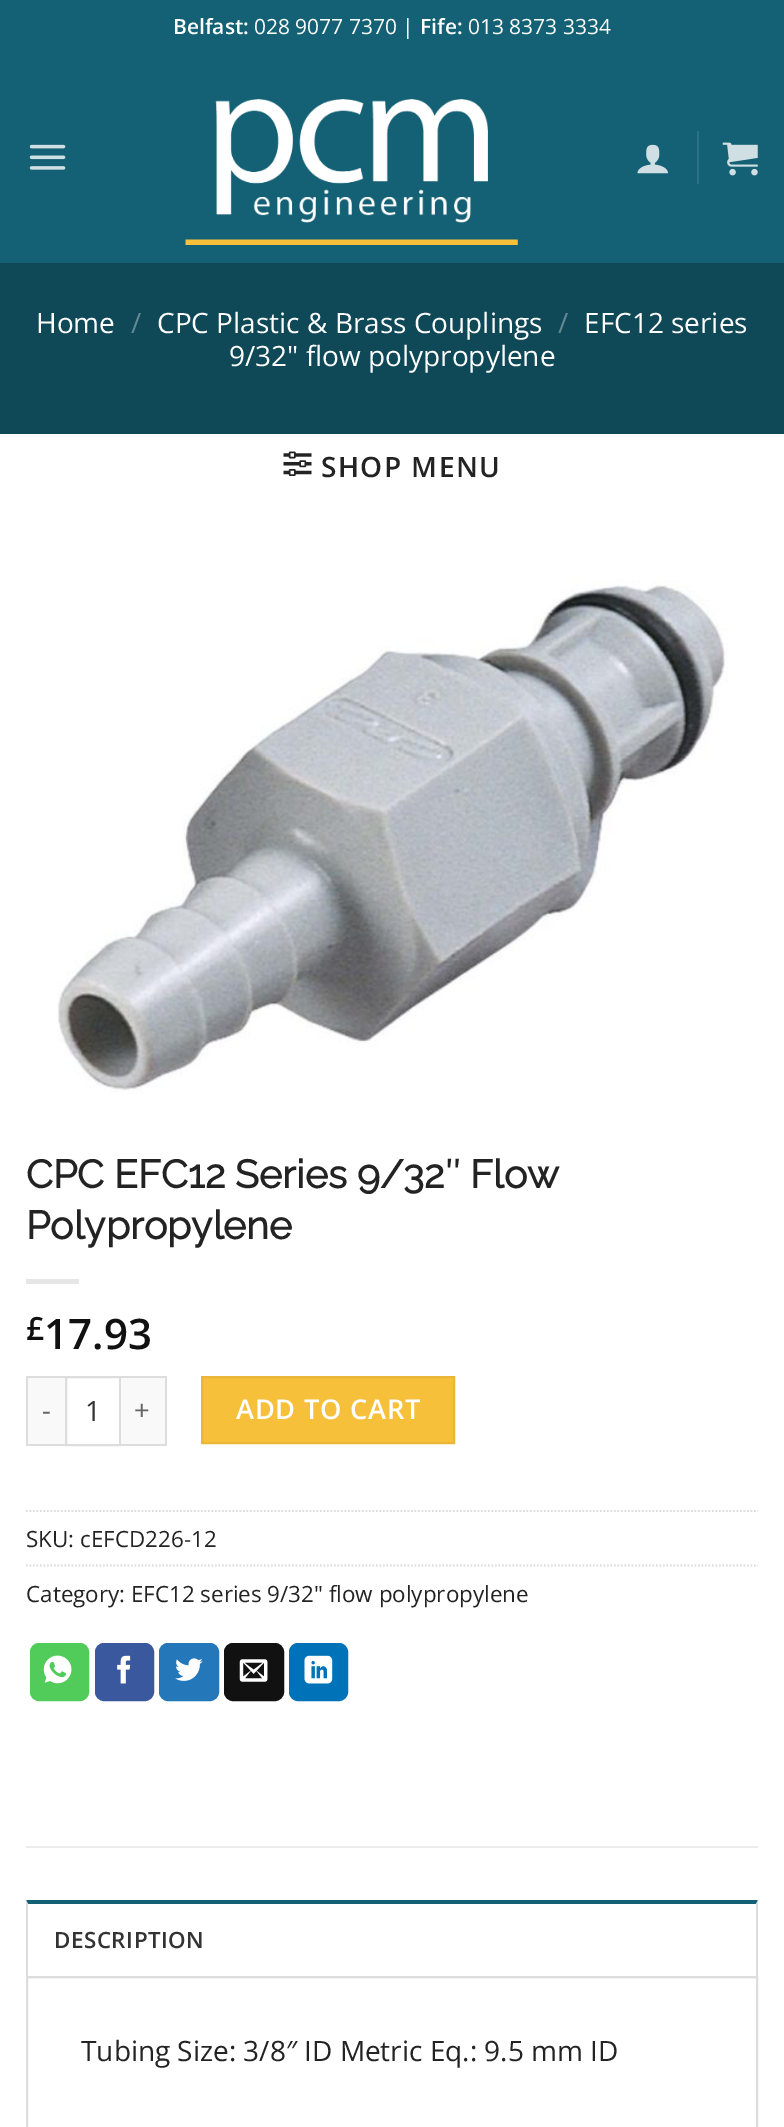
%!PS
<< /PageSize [784 2127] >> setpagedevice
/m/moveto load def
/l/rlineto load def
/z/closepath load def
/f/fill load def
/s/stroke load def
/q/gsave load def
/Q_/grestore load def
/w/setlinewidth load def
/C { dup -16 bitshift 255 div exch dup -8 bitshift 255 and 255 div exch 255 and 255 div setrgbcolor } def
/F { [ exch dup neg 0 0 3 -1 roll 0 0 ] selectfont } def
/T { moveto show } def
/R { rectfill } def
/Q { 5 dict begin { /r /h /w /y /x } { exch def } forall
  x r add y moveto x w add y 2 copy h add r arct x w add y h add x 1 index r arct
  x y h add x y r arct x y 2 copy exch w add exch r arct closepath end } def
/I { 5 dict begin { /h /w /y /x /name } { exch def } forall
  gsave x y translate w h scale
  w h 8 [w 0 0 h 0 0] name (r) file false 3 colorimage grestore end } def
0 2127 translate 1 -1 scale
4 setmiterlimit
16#FFFFFF C
0 0 784 2127 R
16#146074 C
0 0 784 263 R
/OpenSans-SemiBold 21 F
16#FFFFFF C
(Belfast:) 173 34 T
/OpenSans-Regular 21 F
(028 9077 7370 |) 254 34 T
/OpenSans-SemiBold 21 F
(Fife:) 420 34 T
/OpenSans-Regular 21 F
(013 8373 3334) 468 34 T
(1.rgb) 29 144 37 26 I
(2.rgb) 185 99 333 146 I
(3.rgb) 637 144 31 30 I
16#2C7082 C
697 131 2 53 R
(4.rgb) 722 142 36 34 I
16#0F4857 C
0 263 784 171 R
/OpenSans-Regular 28 F
16#FFFFFF C
(Home) 36 333 T
16#638892 C
(/) 131 333 T
16#FFFFFF C
(CPC Plastic & Brass Couplings) 157 333 T
16#638892 C
(/) 558 333 T
16#FFFFFF C
(EFC12 series) 584 333 T
(9/32" flow polypropylene) 229 366 T
(5.rgb) 283 451 29 25 I
/OpenSans-SemiBold 28 F
16#232323 C
321 477 m 1.5 0 (SHOP MENU) ashow
(6.rgb) 57 579 671 515 I
/Raleway-Bold 39.25 F
(CPC EFC12 Series 9/32″ Flow) 26 1188 T
(Polypropylene) 26 1239 T
16#E6E6E6 C
26 1279 53 5 R
/OpenSans-SemiBold 32 F
16#111111 C
(£) 26 1340 T
/OpenSans-SemiBold 42 F
(17.93) 44 1349 T
16#F9F9F9 C
28 1378 37 66 R
16#DDDDDD C
26 1376 39 2 R
26 1444 39 2 R
26 1376 2 70 R
/OpenSans-Regular 27.25 F
16#666666 C
42 1420 m .75 0 (-) ashow
16#DDDDDD C
2 w
66 1377 54 68 rectstroke
/OpenSans-Regular 28 F
16#333333 C
(1) 85 1421 T
16#F9F9F9 C
121 1378 44 66 R
16#DDDDDD C
121 1376 45 2 R
165 1376 2 70 R
121 1444 45 2 R
/OpenSans-Regular 27.25 F
16#666666 C
134 1420 m .75 0 (+) ashow
16#F6C03A C
202 1377 m 252 0 l 0 66 l -252 0 l z q f Q_
16#EAB637 C
s
/OpenSans-SemiBold 27.25 F
16#FFFFFF C
236 1419 m .75 0 (ADD TO CART) ashow
16#DDDDDD C
1.8 w
[1.75 1.75] 0 setdash
26 1511 m 732 0 l s
/OpenSans-Regular 22.4 F
16#232323 C
(SKU: cEFCD226-12) 26 1547 T
16#DDDDDD C
26 1565.5 m 732 0 l s
16#232323 C
(Category: EFC12 series 9/32" flow polypropylene) 26 1602 T
16#51CB5A C
31 1644 57 56 8 Q q f Q_
2 w
[] 0 setdash
s
(7.rgb) 43 1655 29 29 I
16#3A589D C
96 1644 57 56 8 Q q f Q_
s
(8.rgb) 117 1655 14 29 I
16#2478BA C
160 1644 58 56 8 Q q f Q_
s
(9.rgb) 175 1658 28 23 I
16#111111 C
225 1644 58 56 8 Q q f Q_
s
(10.rgb) 239 1659 29 23 I
16#0072B7 C
290 1644 57 56 8 Q q f Q_
s
(11.rgb) 304 1655 29 29 I
16#ECECEC C
26 1846 732 2 R
16#146074 C
26 1900 m 732 0 l -2 4 l -728 0 l z f
16#DDDDDD C
758 1900 m 0 76 l -2 0 l 0 -72 l z f
26 1976 m 0 -76 l 2 4 l 0 72 l z f
/OpenSans-SemiBold 22.4 F
16#333333 C
54 1948 m .5 0 (DESCRIPTION) ashow
16#DDDDDD C
27 1977 730 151 rectstroke
/OpenSans-Regular 28 F
16#232323 C
(Tubing Size: 3/8″ ID Metric Eq.: 9.5 mm ID) 81 2061 T
showpage
